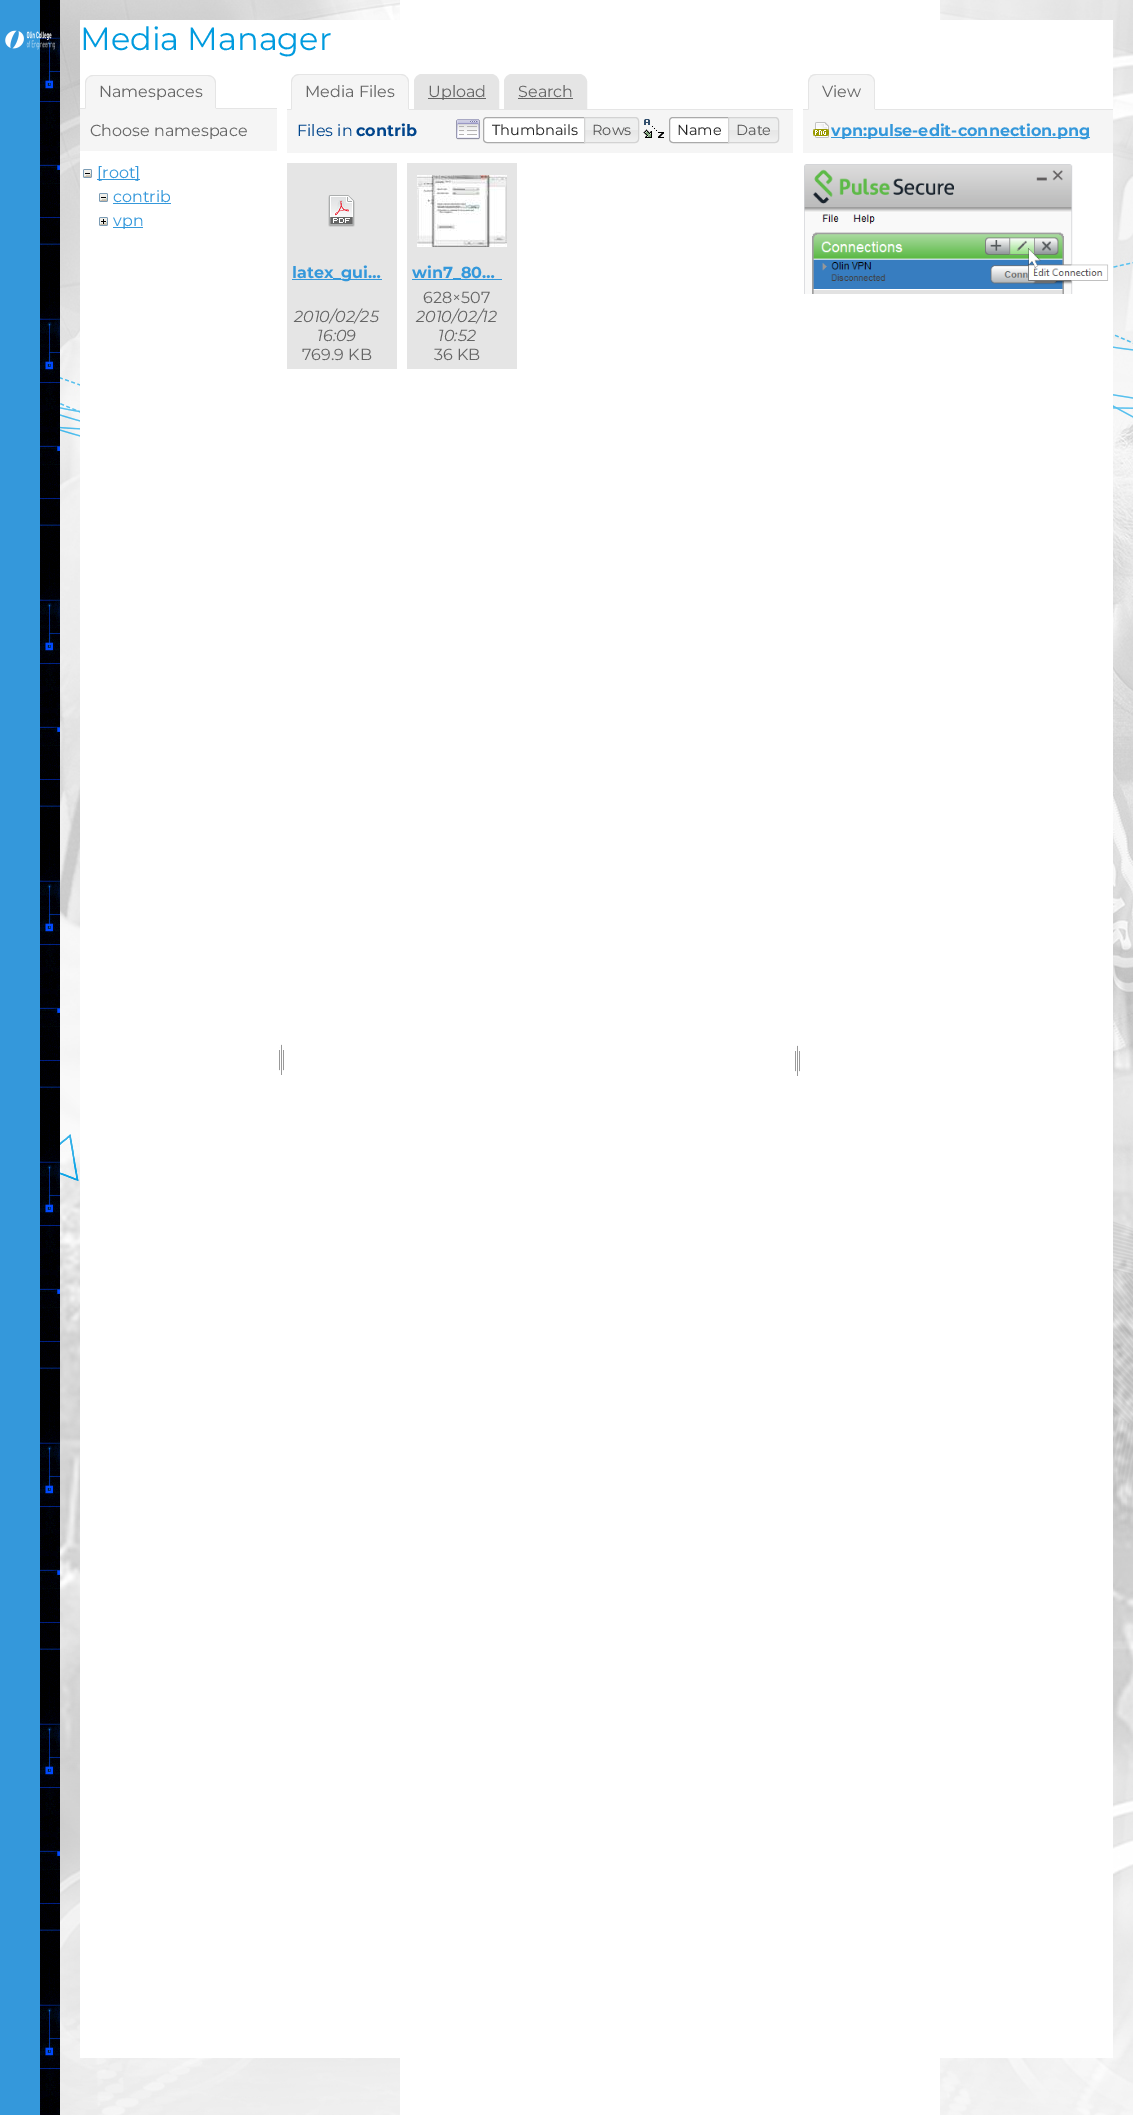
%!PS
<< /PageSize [1133 2115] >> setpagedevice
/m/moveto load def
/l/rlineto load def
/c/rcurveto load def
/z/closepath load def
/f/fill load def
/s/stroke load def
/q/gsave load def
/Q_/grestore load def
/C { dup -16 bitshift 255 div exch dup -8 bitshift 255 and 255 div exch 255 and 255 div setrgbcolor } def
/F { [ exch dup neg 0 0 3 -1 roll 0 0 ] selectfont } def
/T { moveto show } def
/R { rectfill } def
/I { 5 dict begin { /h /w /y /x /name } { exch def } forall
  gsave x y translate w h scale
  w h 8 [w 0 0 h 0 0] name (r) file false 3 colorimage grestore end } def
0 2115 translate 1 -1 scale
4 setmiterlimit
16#FFFFFF C
0 0 1133 2115 R
(1.rgb) 60 0 1073 2115 I
16#3498DB C
0 0 40 2115 R
(2.rgb) 40 0 20 2115 I
16#FFFFFF C
400 0 540 2115 R
(3.rgb) 5 30 50 20 I
80 20 1033 2038 R
/Montserrat-Regular 32 F
16#009BDF C
(Media Manager) 80 50 T
16#E5E5E5 C
80 108 197 1 R
16#F5F5F5 C
93 75 m 115 0 l 4.5 0 8 3.5 8 8 c 0 26 l -131 0 l 0 -26 l 0 -4.5 3.5 -8 8 -8 c z f
16#E5E5E5 C
93 75 m -2 0 -4 1 -5 3 c 1 -1 3 -2 5 -2 c 115 0 l 2 0 4 1 5 2 c 1 0 l -2 -2 -4 -3 -6 -3 c z f
216 109 m 0 -26 l 0 -2 -1 -4 -2.5 -5.5 c -.5 .5 l 1 1 2 3 2 5 c 0 25 l z f
16#F5F5F5 C
216 109 m -1 -1 l -129 0 l -1 1 l z f
16#E5E5E5 C
85 109 m 1 -1 l 0 -25 l 0 -2 1 -4 2 -5 c -.5 -.5 l -1.5 1.5 -2.5 3.5 -2.5 5.5 c z f
/Montserrat-Regular 16 F
16#656565 C
(Namespaces) 99 97 T
16#F5F5F5 C
80 109 197 42 R
16#656565 C
(Choose namespace) 90 136 T
(4.rgb) 83 169 9 9 I
16#3498DB C
97 179 43 1 R
([root]) 97 178 T
(4.rgb) 99 193 9 9 I
(contrib) 113 202 T
113 203 58 1 R
(5.rgb) 99 217 9 9 I
113 227 30 1 R
(vpn) 113 226 T
(6.rgb) 279 1044 5 31 I
16#E5E5E5 C
422 74.5 m 69 0 l 4 0 7.5 3.5 7.5 7.5 c 0 27.5 l -84 0 l 0 -27.5 l 0 -4 3.5 -7.5 7.5 -7.5 c z q f Q_
s
512 74.5 m 67 0 l 4 0 7.5 3.5 7.5 7.5 c 0 27.5 l -82 0 l 0 -27.5 l 0 -4 3.5 -7.5 7.5 -7.5 c z q f Q_
s
287 109 506 1 R
16#F5F5F5 C
299 74 m 102 0 l 4.5 0 8 3.5 8 8 c 0 28 l -118 0 l 0 -28 l 0 -4.5 3.5 -8 8 -8 c z f
16#E5E5E5 C
299 74 m -2 0 -4 1 -5 2 c 0 1 l 1 -1 3 -2 5 -2 c 102 0 l 2 0 4 1 5 2 c 0 -1 l -1 -1 -3 -2 -5 -2 c z f
409 110 m 0 -28 l 0 -2 -1 -4 -2.5 -5.5 c -.5 .5 l 1 1 2 3 2 5 c 0 27 l z f
16#F5F5F5 C
409 110 m -1 -1 l -116 0 l -1 1 l z f
16#E5E5E5 C
291 110 m 1 -1 l 0 -27 l 0 -2 1 -4 2 -5 c -.5 -.5 l -1.5 1.5 -2.5 3.5 -2.5 5.5 c z f
16#656565 C
(Media Files) 305 97 T
428 98 58 1 R
(Upload) 428 97 T
(Search) 518 97 T
518 98 55 1 R
16#F5F5F5 C
287 110 506 43 R
16#00458C C
(Files in) 297 136 T
/Montserrat-Bold 16 F
(contrib) 356 136 T
(7.rgb) 456 119 24 21 I
16#FFFFFF C
487 117.5 m 97.5 0 l 0 25 l -97.5 0 l -2 0 -3.5 -1.5 -3.5 -3.5 c 0 -18 l 0 -2 1.5 -3.5 3.5 -3.5 c z q f Q_
16#AAAAAA C
s
/Montserrat-Regular 14.5 F
16#212121 C
(Thumbnails) 492 135 T
(8.rgb) 585 117 54 26 I
16#D3D3D3 C
584.5 117.5 m 50.5 0 l 2 0 3.5 1.5 3.5 3.5 c 0 18 l 0 2 -1.5 3.5 -3.5 3.5 c -50.5 0 l z s
16#555555 C
(Rows) 592 135 T
(9.rgb) 643 119 21 19 I
16#FFFFFF C
673 117.5 m 55.5 0 l 0 25 l -55.5 0 l -2 0 -3.5 -1.5 -3.5 -3.5 c 0 -18 l 0 -2 1.5 -3.5 3.5 -3.5 c z q f Q_
16#AAAAAA C
s
16#212121 C
(Name) 677 135 T
(10.rgb) 729 117 50 26 I
16#D3D3D3 C
728.5 117.5 m 46.5 0 l 2 0 3.5 1.5 3.5 3.5 c 0 18 l 0 2 -1.5 3.5 -3.5 3.5 c -46.5 0 l z s
16#555555 C
(Date) 736 135 T
16#E5E5E5 C
287 163 110 206 R
(11.rgb) 328 195 27 32 I
16#3498DB C
292 279 90 1 R
/Montserrat-Bold 16 F
(latex_gui…) 292 278 T
/Montserrat-Italic 16 F
16#656565 C
(2010/02/25) 294 322 T
(16:09) 317 341 T
/Montserrat-Regular 16 F
(769.9 KB) 302 360 T
16#E5E5E5 C
407 163 110 206 R
(12.rgb) 417 175 90 72 I
16#3498DB C
412 279 90 1 R
/Montserrat-Bold 16 F
(win7_80…) 412 278 T
/Montserrat-Regular 16 F
16#656565 C
(628×507) 423 303 T
/Montserrat-Italic 16 F
(2010/02/12) 416 322 T
(10:52) 438 341 T
/Montserrat-Regular 16 F
(36 KB) 434 360 T
(6.rgb) 795 1045 5 31 I
16#E5E5E5 C
803 109 310 1 R
16#F5F5F5 C
816 74 m 51 0 l 4.5 0 8 3.5 8 8 c 0 28 l -67 0 l 0 -28 l 0 -4.5 3.5 -8 8 -8 c z f
16#E5E5E5 C
816 74 m -2 0 -4 1 -6 2 c 1 1 l 1 -1 3 -2 5 -2 c 51 0 l 2 0 4 1 5 2 c 0 -1 l -1 -1 -3 -2 -5 -2 c z f
875 110 m 0 -28 l 0 -2 -1 -4 -2.5 -5.5 c -.5 .5 l 1 1 2 3 2 5 c 0 27 l z f
16#F5F5F5 C
875 110 m -1 -1 l -65 0 l -1 1 l z f
16#E5E5E5 C
808 110 m 1 -1 l 0 -27 l 0 -2 1 -4 2 -5 c -.5 -.5 l -1.5 1.5 -2.5 3.5 -2.5 5.5 c z f
16#656565 C
(View) 822 97 T
16#F5F5F5 C
803 110 310 43 R
(13.rgb) 813 122 16 16 I
16#3498DB C
831 137 259 1 R
/Montserrat-Bold 16 F
(vpn:pulse-edit-connection.png) 831 136 T
(14.rgb) 804 164 305 130 I
showpage
